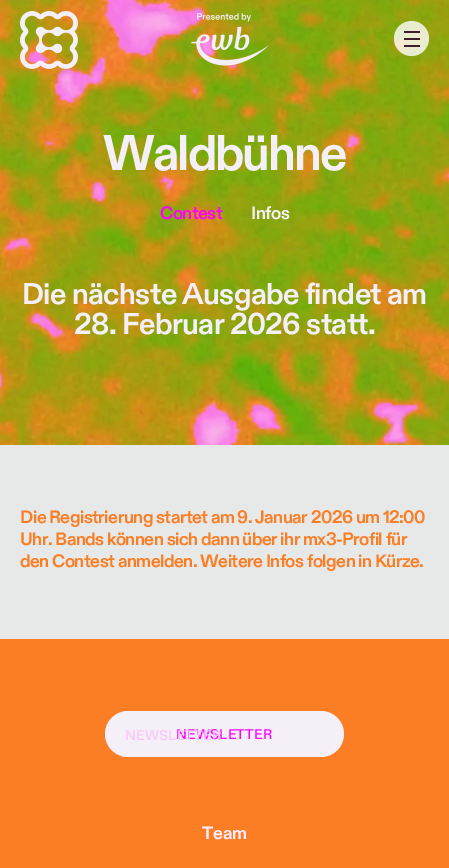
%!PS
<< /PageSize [449 868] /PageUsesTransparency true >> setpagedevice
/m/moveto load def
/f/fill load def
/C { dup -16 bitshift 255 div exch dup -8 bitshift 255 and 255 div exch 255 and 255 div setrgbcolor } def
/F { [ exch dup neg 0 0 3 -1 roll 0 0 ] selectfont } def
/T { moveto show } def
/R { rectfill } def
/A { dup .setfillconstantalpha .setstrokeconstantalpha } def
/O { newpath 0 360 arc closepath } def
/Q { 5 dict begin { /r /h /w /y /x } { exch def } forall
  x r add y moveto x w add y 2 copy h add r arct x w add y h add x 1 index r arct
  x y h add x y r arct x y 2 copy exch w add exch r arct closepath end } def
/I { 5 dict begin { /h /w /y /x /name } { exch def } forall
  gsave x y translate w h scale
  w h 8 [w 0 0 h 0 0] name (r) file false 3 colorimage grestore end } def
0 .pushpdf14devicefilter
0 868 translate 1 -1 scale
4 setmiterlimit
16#E7E8E8 C
0 0 449 868 R
(3.rgb) 0 0 449 445 I
(1.rgb) 20 11 58 58 I
0.8 A
16#FFFFFF C
411.5 38.5 17.5 O f
1 A
16#3D1D2D C
404 31 16 2 R
404 38 16 2 R
404 45 16 2 R
(2.rgb) 191 13 78 53 I
/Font-Bold 50 F
16#F5F0F8 C
103 170 m -2 0 (Waldbühne) ashow
/Font-Bold 18 F
16#FF00FF C
160 219 m -.55 0 (Contest) ashow
16#F5F0F8 C
251 219 m -.55 0 (Infos) ashow
/Font-Bold 30 F
22 304 m -.6 0 (Die nächste Ausgabe findet am) ashow
74 334 m -.6 0 (28. Februar 2026 statt.) ashow
/Font-Bold 18 F
16#FB7D24 C
20 523 m -.55 0 (Die Registrierung startet am 9. Januar 2026 um 12:00) ashow
20 545 m -.55 0 (Uhr. Bands können sich dann über ihr mx3-Profil für) ashow
20 567 m -.55 0 (den Contest anmelden. Weitere Infos folgen in Kürze.) ashow
0 639 449 229 R
16#F5F0F8 C
105 711 239 46 23 Q f
/Font-Medium 14 F
16#FF00FF C
176 739 m .25 0 (NEWSLETTER) ashow
16#F7C7F9 C
125 740 m .25 0 (NEWSLETTER) ashow
/Font-Bold 18 F
16#FFEEFF C
(Team) 202 839 T
.poppdf14devicefilter showpage
